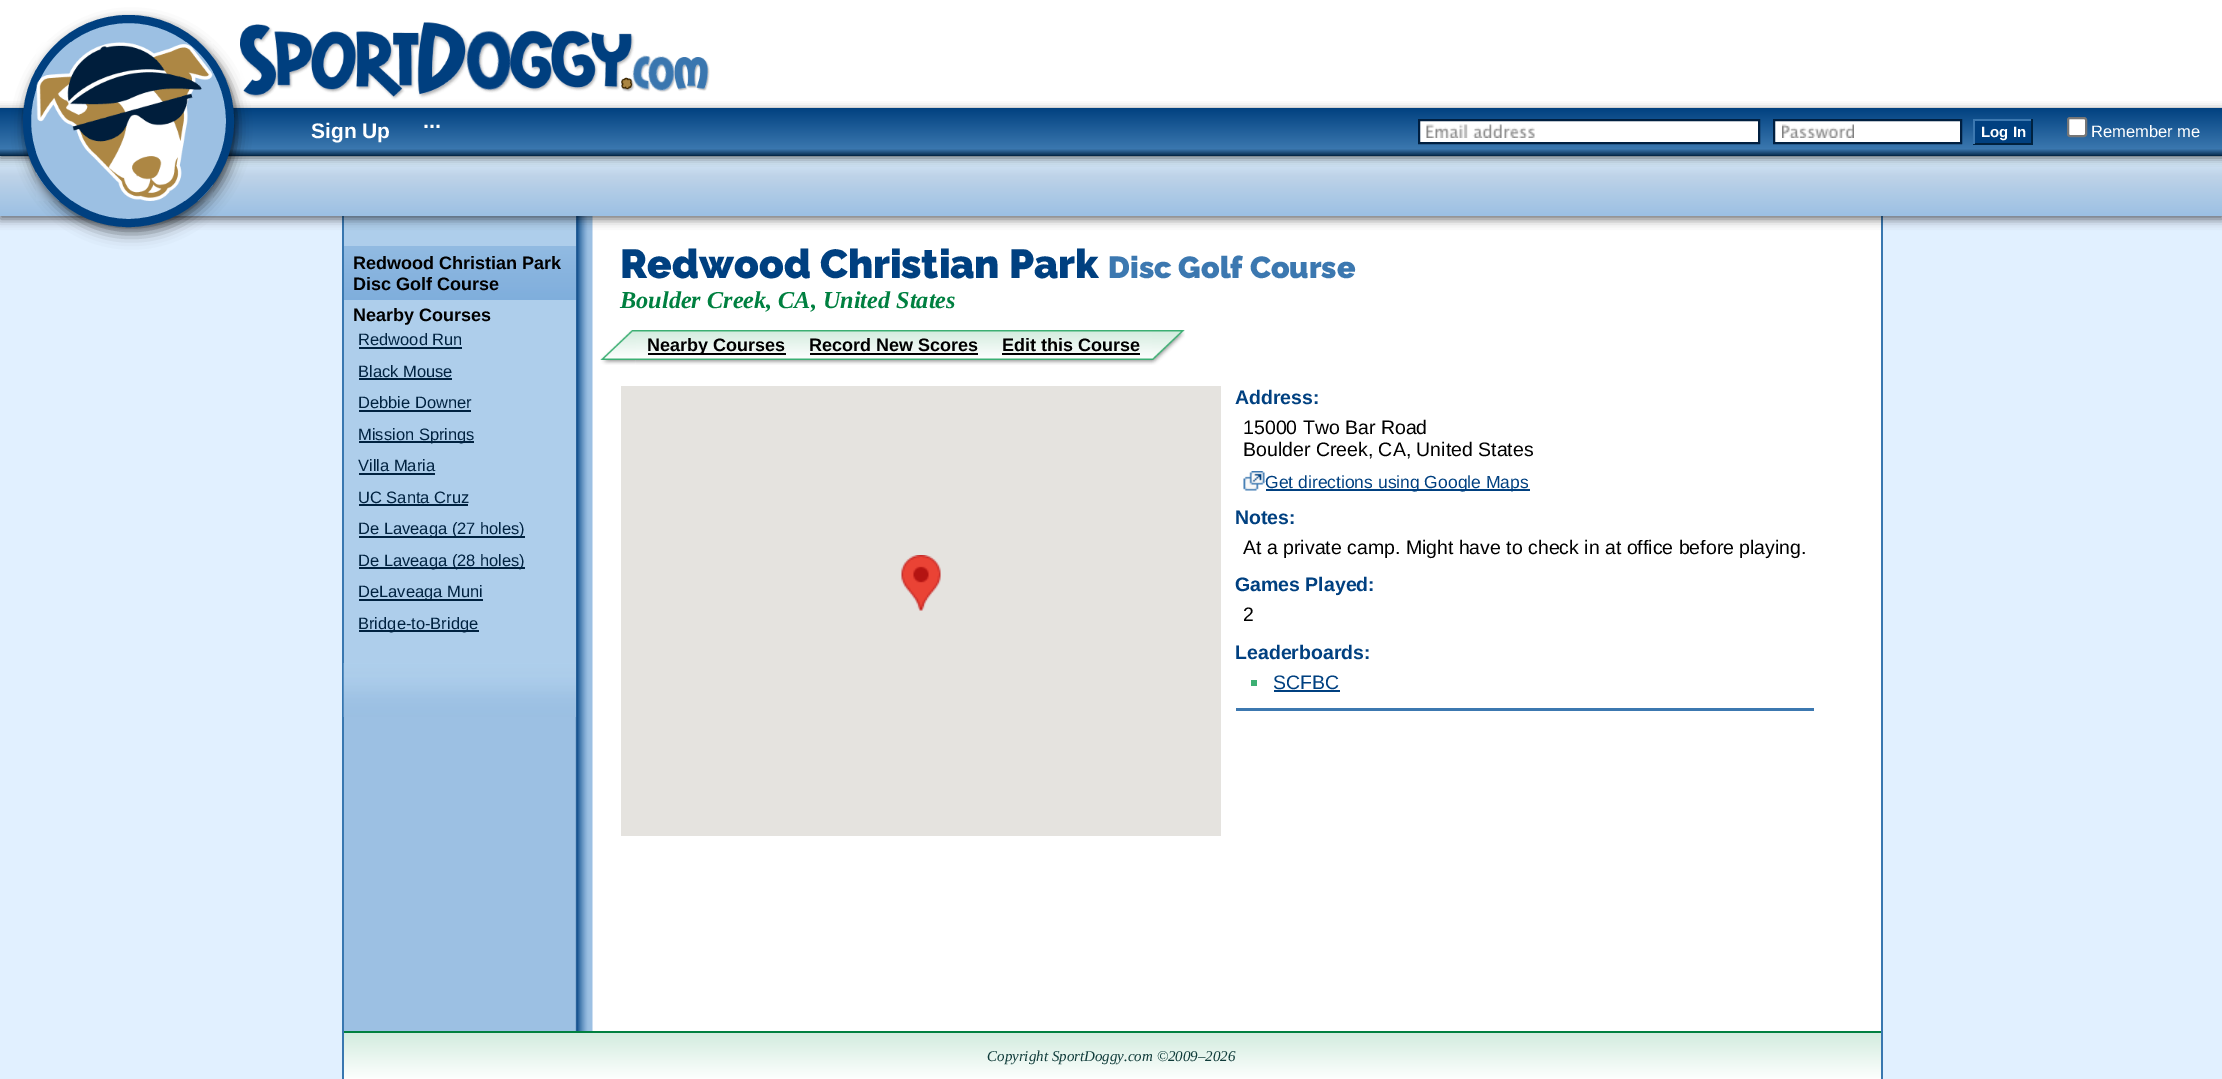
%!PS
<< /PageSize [2222 1079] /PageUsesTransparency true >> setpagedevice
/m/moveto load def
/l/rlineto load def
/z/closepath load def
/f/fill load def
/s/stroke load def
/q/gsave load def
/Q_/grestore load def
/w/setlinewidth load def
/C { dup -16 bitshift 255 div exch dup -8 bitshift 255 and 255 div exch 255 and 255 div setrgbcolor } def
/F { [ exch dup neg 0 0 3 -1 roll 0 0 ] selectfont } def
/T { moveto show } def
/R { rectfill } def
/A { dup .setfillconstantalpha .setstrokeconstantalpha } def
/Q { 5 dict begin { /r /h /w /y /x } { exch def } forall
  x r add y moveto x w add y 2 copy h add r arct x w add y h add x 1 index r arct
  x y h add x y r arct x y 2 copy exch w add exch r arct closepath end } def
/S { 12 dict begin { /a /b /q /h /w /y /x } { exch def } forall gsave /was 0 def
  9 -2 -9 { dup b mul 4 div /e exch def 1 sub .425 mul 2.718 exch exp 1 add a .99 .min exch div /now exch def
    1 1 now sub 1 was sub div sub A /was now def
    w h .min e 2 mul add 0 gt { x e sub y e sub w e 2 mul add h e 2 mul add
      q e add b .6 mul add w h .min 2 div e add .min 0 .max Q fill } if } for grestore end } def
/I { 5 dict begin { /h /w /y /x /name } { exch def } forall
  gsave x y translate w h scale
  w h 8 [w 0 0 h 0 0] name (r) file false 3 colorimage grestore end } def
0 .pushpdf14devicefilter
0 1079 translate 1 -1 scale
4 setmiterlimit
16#E1F0FF C
0 0 2222 1079 R
16#FFFFFF C
0 0 2222 108 R
592 216 1289 815 R
(5.rgb) 344 216 249 815 I
16#3877B0 C
1881 216 2 863 R
342 216 2 863 R
16#AECEEB C
344 216 232 447 R
16#000000 C
0 159 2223 60 0 5 .6 S
q 0 156 m 2222 0 l 0 60 l -2222 0 l z clip newpath
<< /ShadingType 2 /ColorSpace /DeviceRGB /Coords [1112 156 1112 216] /Extend [true true] /Function << /FunctionType 3 /Domain [0 1] /Functions [<< /FunctionType 2 /Domain [0 1] /C0 [.859 .933 .988] /C1 [.745 .827 .91] /N 1 >> << /FunctionType 2 /Domain [0 1] /C0 [.745 .827 .91] /C1 [.612 .753 .89] /N 1 >> << /FunctionType 2 /Domain [0 1] /C0 [.612 .753 .89] /C1 [.612 .753 .89] /N 1 >>] /Bounds [.33 .99] /Encode [0 1 0 1 0 1] >> >> shfill Q_
0 110 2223 48 0 4 .6 S
q 0 108 m 2222 0 l 0 48 l -2222 0 l z clip newpath
<< /ShadingType 2 /ColorSpace /DeviceRGB /Coords [1112 108 1112 156] /Extend [true true] /Function << /FunctionType 3 /Domain [0 1] /Functions [<< /FunctionType 2 /Domain [0 1] /C0 [.004 .255 .502] /C1 [.231 .467 .686] /N 1 >> << /FunctionType 2 /Domain [0 1] /C0 [.231 .467 .686] /C1 [.016 .157 .282] /N 1 >>] /Bounds [.85] /Encode [0 1 0 1] >> >> shfill Q_
26 23 211 211 105.5 7 .5 S
24 17 212 211 105.5 3 .3 S
16#9CC0E3 C
27 19 203 204 101.5 Q q f Q_
16#004080 C
8 w
s
(1.rgb) 36 42 177 159 I
(2.rgb) 240 22 470 78 I
/LiberationSans-Bold 21 F
16#FFFFFF C
(Sign Up) 311 138 T
(...) 423 128 T
1420 121 338 21 R
(3.rgb) 1426 124 109 14 I
16#001F40 C
2 w
1419 120 340 23 rectstroke
16#FFFFFF C
1775 121 185 21 R
(4.rgb) 1782 124 72 14 I
16#001F40 C
1774 120 187 23 rectstroke
16#004080 C
1975 121 56 22 R
16#3C78B0 C
1973 119 60 2 R
16#002240 C
2031 119 2 25 R
1973 143 60 2 R
16#3C78B0 C
1973 119 2 25 R
/LiberationSans-Bold 15 F
16#FFFFFF C
(Log In) 1981 137 T
2068 118 18 18 2 Q q f Q_
16#767676 C
s
/LiberationSans-Regular 16.5 F
16#FFFFFF C
(Remember me) 2091 137 T
(6.rgb) 343 663 233 54 I
q 344 246 m 232 0 l 0 54 l -232 0 l z clip newpath
<< /ShadingType 2 /ColorSpace /DeviceRGB /Coords [460 246 460 300] /Extend [true true] /Function << /FunctionType 3 /Domain [0 1] /Functions [<< /FunctionType 2 /Domain [0 1] /C0 [.573 .733 .886] /C1 [.498 .682 .863] /N 1 >> << /FunctionType 2 /Domain [0 1] /C0 [.498 .682 .863] /C1 [.498 .682 .863] /N 1 >>] /Bounds [.99] /Encode [0 1 0 1] >> >> shfill Q_
/LiberationSans-Bold 18 F
16#000000 C
(Redwood Christian Park) 353 269 T
(Disc Golf Course) 353 290 T
(Nearby Courses) 353 321 T
/LiberationSans-Regular 16.5 F
16#002240 C
(Redwood Run) 358 345 T
359 347 103 2 R
(Black Mouse) 358 377 T
359 378 93 2 R
(Debbie Downer) 358 408 T
359 410 112 2 R
359 441 115 2 R
(Mission Springs) 358 440 T
(Villa Maria) 358 471 T
359 473 76 2 R
(UC Santa Cruz) 358 503 T
359 504 109 2 R
359 536 166 2 R
(De Laveaga \(27 holes\)) 358 534 T
359 567 166 2 R
(De Laveaga \(28 holes\)) 358 566 T
359 599 124 2 R
(DeLaveaga Muni) 358 597 T
359 630 120 2 R
(Bridge-to-Bridge) 358 629 T
/Raleway-Black 40.5 F
16#004080 C
(Redwood Christian Park) 620 278 T
/Raleway-Black 30.5 F
16#3C78B0 C
(Disc Golf Course) 1108 278 T
/LiberationSerif-BoldItalic 24.25 F
16#008040 C
(Boulder Creek, CA, United States) 620 308 T
(7.rgb) 600 330 36 35 I
(8.rgb) 636 330 162 35 I
16#000000 C
648 353 138 2 R
/LiberationSans-Bold 18 F
(Nearby Courses) 647 351 T
(9.rgb) 798 330 192 35 I
(Record New Scores) 809 351 T
810 353 168 2 R
(8.rgb) 990 330 162 35 I
(Edit this Course) 1002 351 T
1002 353 138 2 R
(10.rgb) 1152 330 33 35 I
16#E5E3DF C
621 386 600 450 R
(11.rgb) 901 555 40 56 I
16#3C78B0 C
1236 708 578 3 R
/LiberationSans-Bold 19.5 F
16#004080 C
(Address:) 1235 404 T
/LiberationSans-Regular 19.5 F
16#000000 C
(15000 Two Bar Road) 1243 434 T
(Boulder Creek, CA, United States) 1243 456 T
(12.rgb) 1243 471 22 20 I
16#004080 C
1266 489 264 2 R
/LiberationSans-Regular 17.5 F
(Get directions using Google Maps) 1265 488 T
/LiberationSans-Bold 19.5 F
(Notes:) 1235 524 T
/LiberationSans-Regular 19.5 F
16#000000 C
(At a private camp. Might have to check in at office before playing.) 1243 554 T
/LiberationSans-Bold 19.5 F
16#004080 C
(Games Played:) 1235 591 T
/LiberationSans-Regular 19.5 F
16#000000 C
(2) 1243 621 T
/LiberationSans-Bold 19.5 F
16#004080 C
(Leaderboards:) 1235 659 T
16#3CAF73 C
1251 680 6 6 R
/LiberationSans-Regular 19.5 F
16#004080 C
(SCFBC) 1273 689 T
1274 690 66 2 R
q 344 1033 m 1537 0 l 0 46 l -1537 0 l z clip newpath
<< /ShadingType 2 /ColorSpace /DeviceRGB /Coords [1112 1032 1112 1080] /Extend [true true] /Function << /FunctionType 2 /Domain [0 1] /C0 [.824 .922 .871] /C1 [.996 1 1] /N 1 >> >> shfill Q_
16#008040 C
344 1031 1537 2 R
/LiberationSerif-Italic 15 F
16#103C3A C
(Copyright SportDoggy.com ©2009–2026) 987 1061 T
.poppdf14devicefilter showpage
